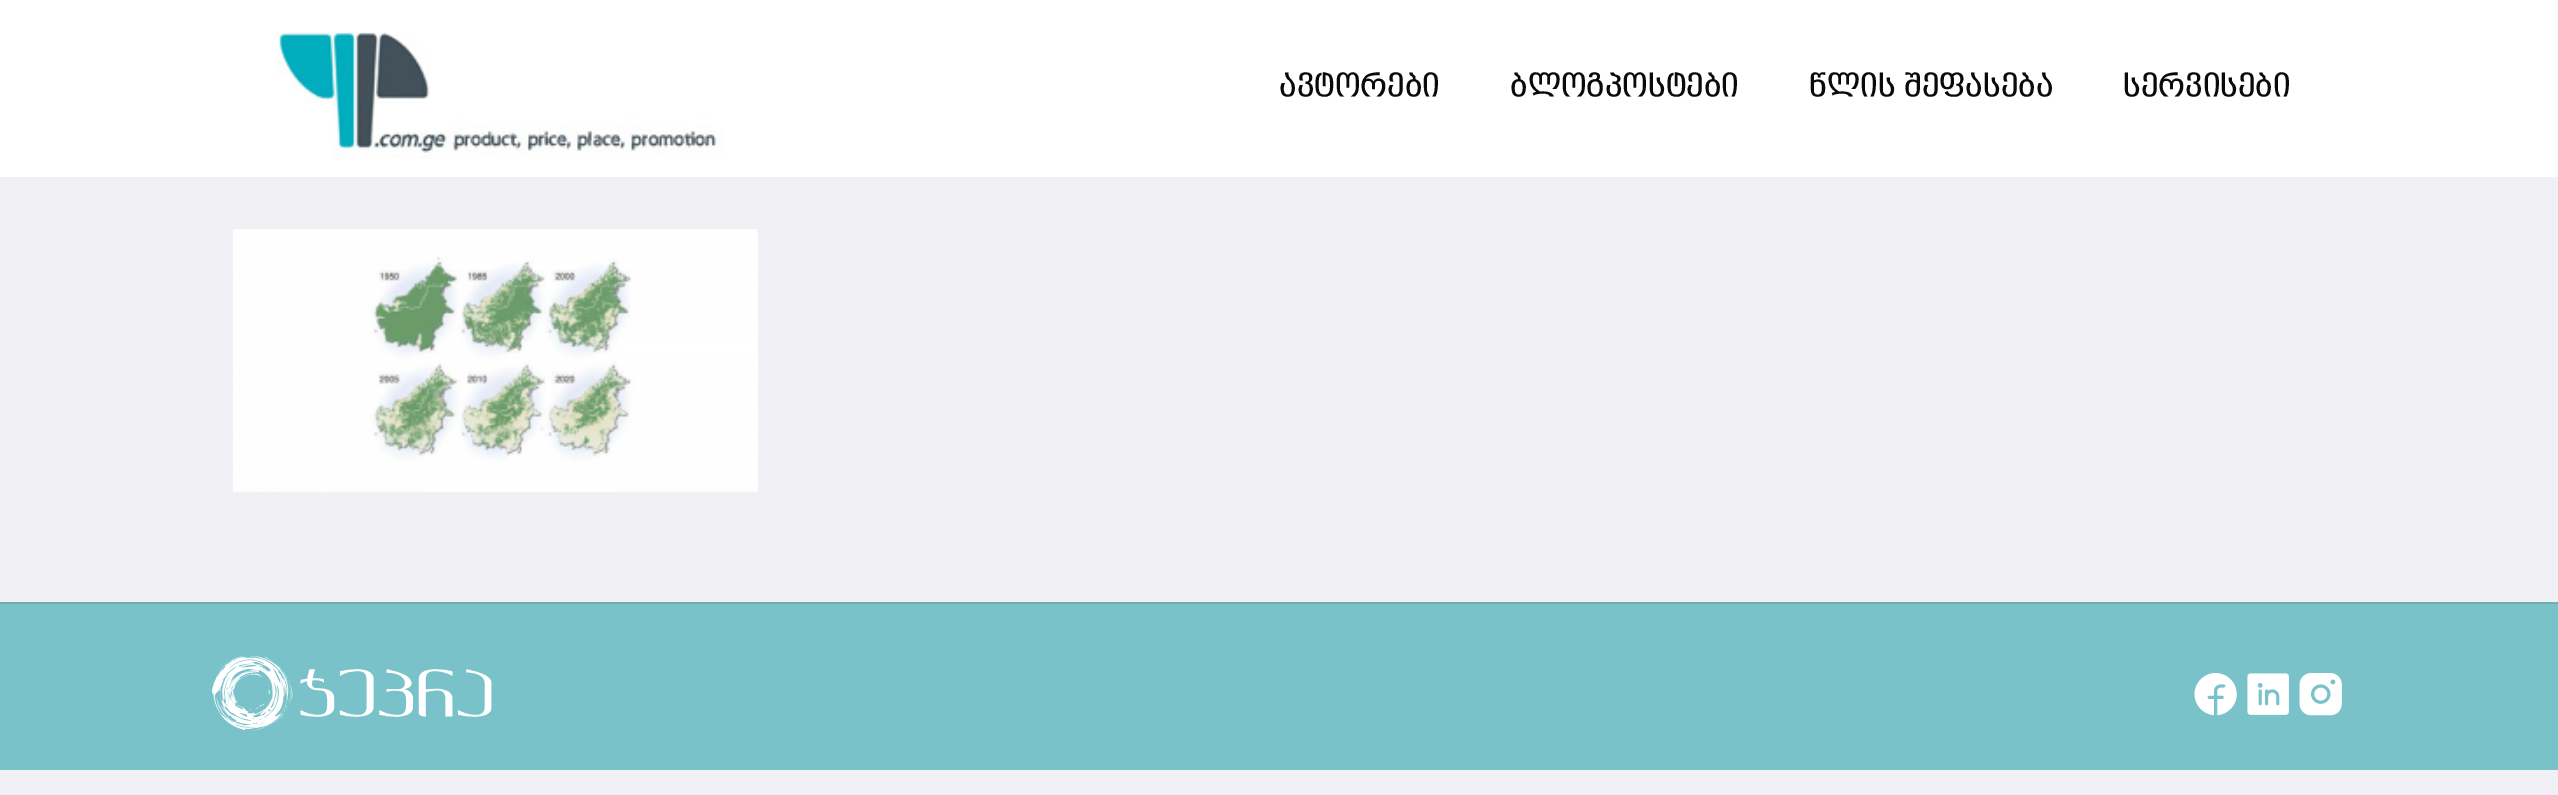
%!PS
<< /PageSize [2558 795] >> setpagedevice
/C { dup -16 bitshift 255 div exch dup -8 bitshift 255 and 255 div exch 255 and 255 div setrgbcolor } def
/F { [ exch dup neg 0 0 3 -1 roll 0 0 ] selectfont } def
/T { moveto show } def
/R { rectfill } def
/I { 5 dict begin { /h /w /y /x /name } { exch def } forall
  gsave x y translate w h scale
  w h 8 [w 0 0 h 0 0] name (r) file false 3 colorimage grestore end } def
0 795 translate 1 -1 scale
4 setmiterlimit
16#F1F1F5 C
0 0 2558 795 R
16#FFFFFF C
0 0 2558 177 R
(1.rgb) 277 32 447 127 I
/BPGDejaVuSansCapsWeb-Regular 28 F
16#0A0A0A C
(ავტორები) 1279 96 T
(ბლოგპოსტები) 1510 96 T
(წლის შეფასება) 1809 96 T
(სერვისები) 2123 96 T
(2.rgb) 233 229 525 263 I
16#79C2C9 C
0 604 2558 166 R
16#6DAFB5 C
0 602 2558 2 R
(3.rgb) 212 655 280 76 I
(4.rgb) 2194 673 43 43 I
(5.rgb) 2247 673 42 42 I
(6.rgb) 2299 673 43 43 I
showpage
